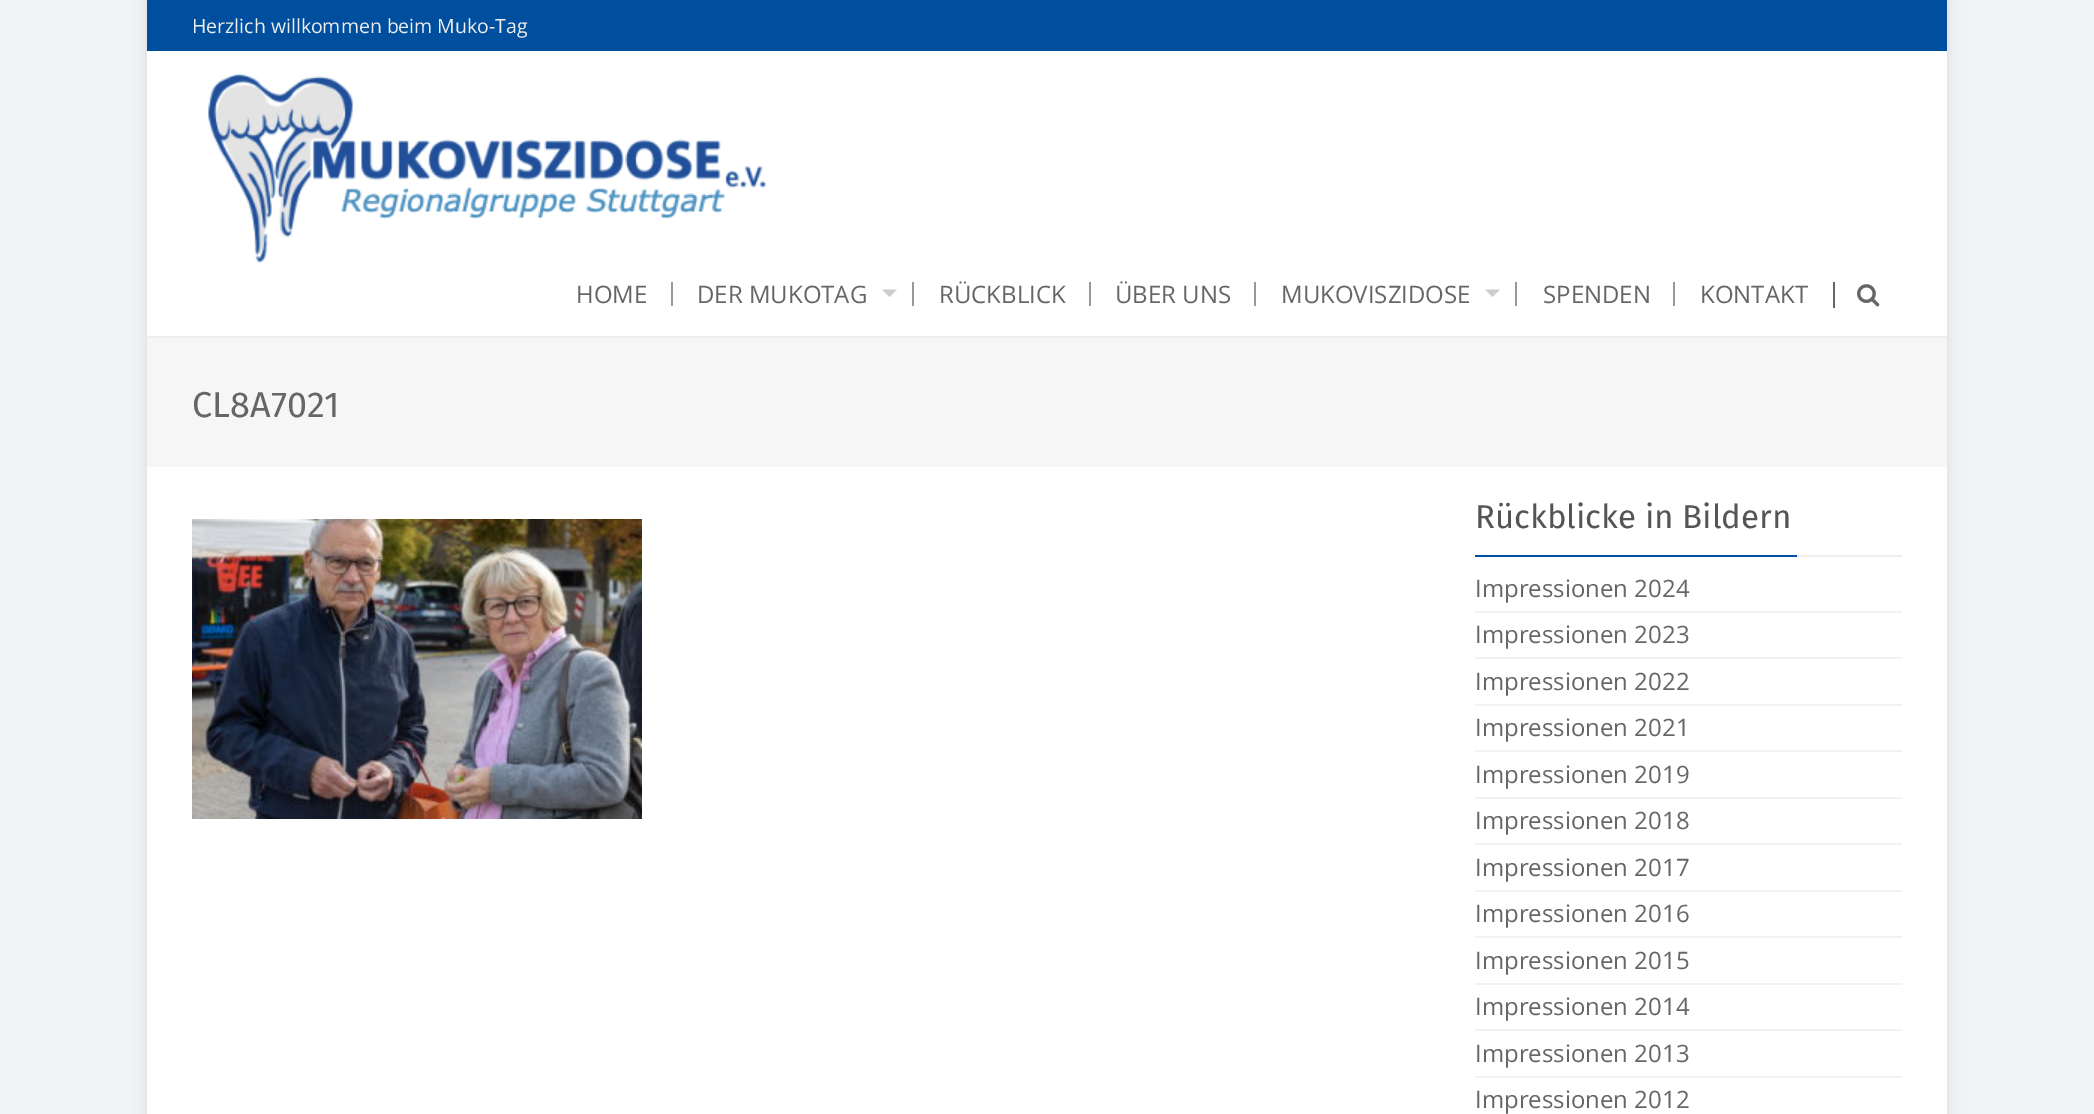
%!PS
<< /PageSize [2094 1114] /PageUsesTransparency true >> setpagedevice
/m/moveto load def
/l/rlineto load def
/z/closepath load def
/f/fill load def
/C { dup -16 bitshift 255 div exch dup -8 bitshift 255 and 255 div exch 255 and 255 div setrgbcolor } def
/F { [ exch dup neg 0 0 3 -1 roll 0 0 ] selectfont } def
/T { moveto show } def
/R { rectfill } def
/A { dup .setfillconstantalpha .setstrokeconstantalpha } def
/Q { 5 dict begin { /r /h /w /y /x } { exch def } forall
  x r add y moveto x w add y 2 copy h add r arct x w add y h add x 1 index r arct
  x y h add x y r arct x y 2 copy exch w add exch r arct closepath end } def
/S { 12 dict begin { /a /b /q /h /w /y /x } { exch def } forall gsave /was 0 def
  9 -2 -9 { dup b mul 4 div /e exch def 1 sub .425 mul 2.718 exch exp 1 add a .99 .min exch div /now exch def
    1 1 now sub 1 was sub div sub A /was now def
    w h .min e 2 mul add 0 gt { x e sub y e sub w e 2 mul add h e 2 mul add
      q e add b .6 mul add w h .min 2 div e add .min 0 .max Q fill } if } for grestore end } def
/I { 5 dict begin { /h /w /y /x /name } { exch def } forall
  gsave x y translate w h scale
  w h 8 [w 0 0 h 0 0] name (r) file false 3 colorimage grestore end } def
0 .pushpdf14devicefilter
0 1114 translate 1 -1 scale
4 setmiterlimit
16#F2F3F4 C
0 0 2094 1114 R
16#000000 C
147 0 1800 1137 0 7.5 .1 S
16#FFFFFF C
147 51 1800 1063 R
16#004F9F C
147 0 1800 51 R
/OpenSans-Regular 19.5 F
16#EEEEEE C
(Herzlich willkommen beim Muko-Tag) 192 33 T
147 336 1800 2 R
(1.rgb) 208 73 558 190 I
16#999999 C
671 282 2 24 R
/OpenSans-Regular 24 F
16#666666 C
(HOME) 576 303 T
16#999999 C
912 282 2 24 R
16#666666 C
(DER MUKOTAG) 697 303 T
16#CCCCCC C
882 289.5 m 15 0 l -7.5 7.5 l z f
16#999999 C
1089 282 2 24 R
16#666666 C
(RÜCKBLICK) 939 303 T
16#999999 C
1254 282 2 24 R
16#666666 C
(ÜBER UNS) 1115 303 T
16#999999 C
1515 282 2 24 R
16#666666 C
(MUKOVISZIDOSE) 1281 303 T
16#CCCCCC C
1485 289.5 m 15 0 l -7.5 7.5 l z f
16#999999 C
1673 282 2 24 R
16#666666 C
(SPENDEN) 1543 303 T
(KONTAKT) 1700 303 T
1833 282 2 26 R
(2.rgb) 1857 284 23 23 I
16#F6F6F6 C
147 338 1800 129 R
/FiraSans-Regular 36 F
16#666666 C
(CL8A7021) 192 417 T
(3.rgb) 192 519 450 300 I
16#EEEEEE C
1797 555 105 2 R
/FiraSans-Regular 33 F
16#555555 C
(Rückblicke in Bildern) 1475 528 T
16#004F9F C
1475 555 322 2 R
16#F2F2F2 C
1475 611 427 2 R
/OpenSans-Regular 24 F
16#666666 C
(Impressionen 2024) 1475 597 T
16#F2F2F2 C
1475 657 427 2 R
16#666666 C
(Impressionen 2023) 1475 643 T
16#F2F2F2 C
1475 704 427 2 R
16#666666 C
(Impressionen 2022) 1475 690 T
16#F2F2F2 C
1475 750 427 2 R
16#666666 C
(Impressionen 2021) 1475 736 T
16#F2F2F2 C
1475 797 427 2 R
16#666666 C
(Impressionen 2019) 1475 783 T
16#F2F2F2 C
1475 843 427 2 R
16#666666 C
(Impressionen 2018) 1475 829 T
16#F2F2F2 C
1475 890 427 2 R
16#666666 C
(Impressionen 2017) 1475 876 T
16#F2F2F2 C
1475 936 427 2 R
16#666666 C
(Impressionen 2016) 1475 922 T
16#F2F2F2 C
1475 983 427 2 R
16#666666 C
(Impressionen 2015) 1475 969 T
16#F2F2F2 C
1475 1029 427 2 R
16#666666 C
(Impressionen 2014) 1475 1015 T
16#F2F2F2 C
1475 1076 427 2 R
16#666666 C
(Impressionen 2013) 1475 1062 T
(Impressionen 2012) 1475 1108 T
.poppdf14devicefilter showpage
